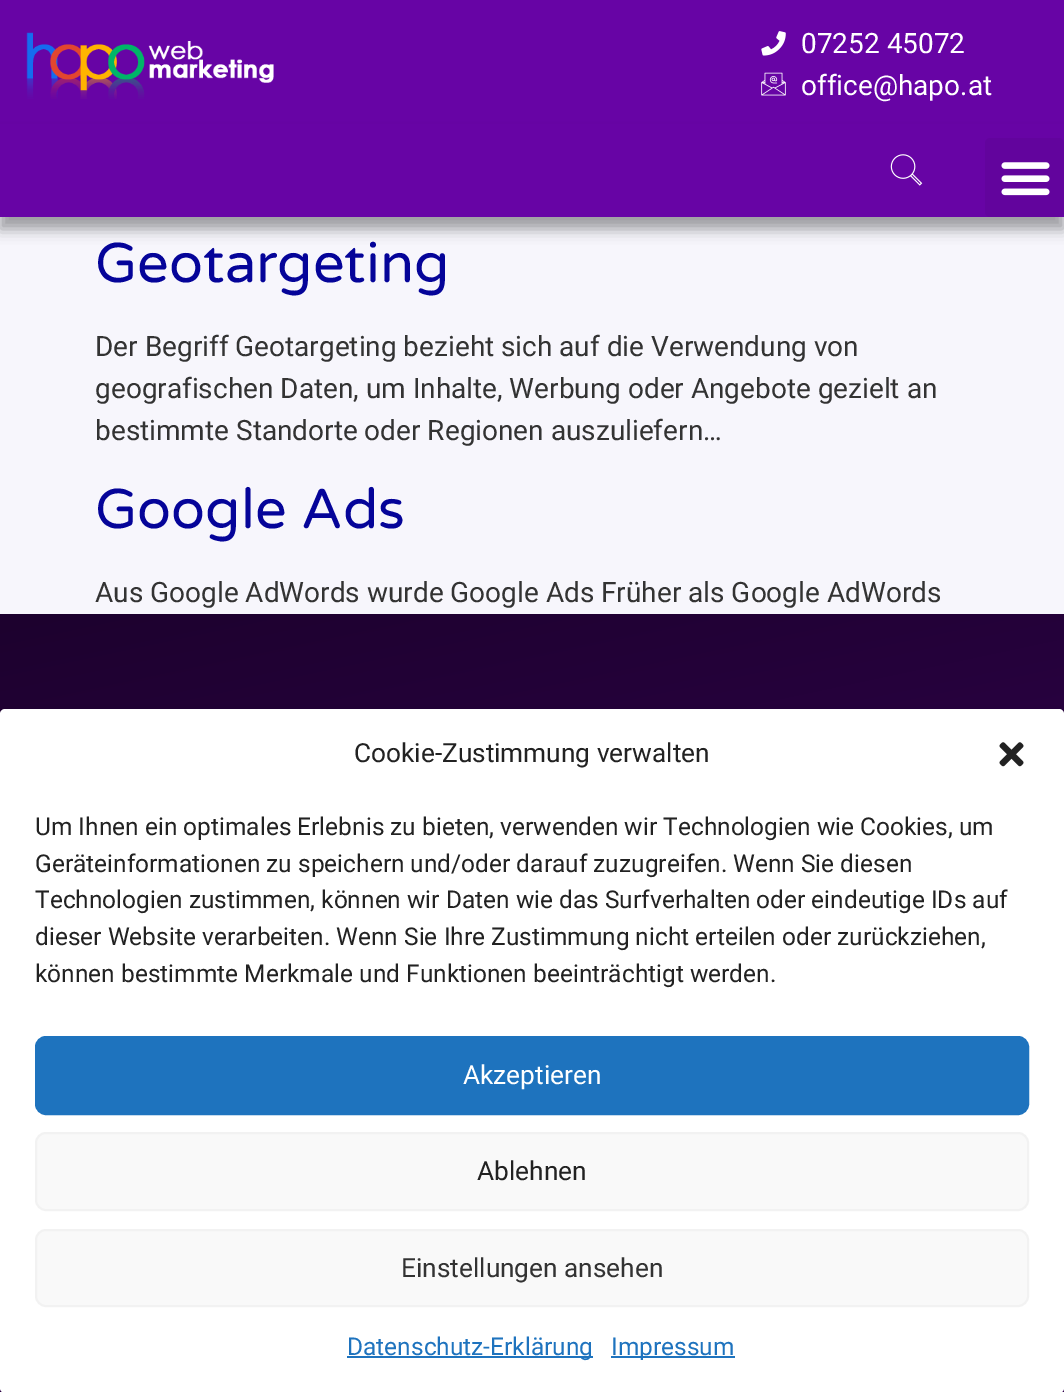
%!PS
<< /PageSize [1064 1392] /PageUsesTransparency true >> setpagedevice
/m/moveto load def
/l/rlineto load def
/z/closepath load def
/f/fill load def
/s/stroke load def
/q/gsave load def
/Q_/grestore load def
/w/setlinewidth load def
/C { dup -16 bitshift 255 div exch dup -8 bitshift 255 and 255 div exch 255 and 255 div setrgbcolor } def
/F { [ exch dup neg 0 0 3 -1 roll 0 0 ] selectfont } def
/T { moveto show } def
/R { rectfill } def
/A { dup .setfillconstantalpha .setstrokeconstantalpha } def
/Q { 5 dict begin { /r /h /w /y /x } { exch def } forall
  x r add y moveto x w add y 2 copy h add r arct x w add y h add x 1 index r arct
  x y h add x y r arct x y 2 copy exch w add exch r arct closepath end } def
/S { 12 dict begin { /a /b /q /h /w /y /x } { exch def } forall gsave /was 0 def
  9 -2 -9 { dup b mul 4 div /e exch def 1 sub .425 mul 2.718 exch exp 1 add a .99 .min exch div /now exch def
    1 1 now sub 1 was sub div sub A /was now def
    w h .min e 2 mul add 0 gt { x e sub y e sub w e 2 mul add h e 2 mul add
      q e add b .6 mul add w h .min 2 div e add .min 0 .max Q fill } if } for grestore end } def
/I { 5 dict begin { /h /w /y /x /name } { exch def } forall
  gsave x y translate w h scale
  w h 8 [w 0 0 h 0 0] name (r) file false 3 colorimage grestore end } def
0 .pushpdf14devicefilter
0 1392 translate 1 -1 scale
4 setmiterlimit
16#F7F6FC C
0 0 1064 1392 R
16#6704A5 C
0 0 1064 124 R
(1.rgb) 26 32 248 67 I
(2.rgb) 761 31 25 25 I
/Roboto-Regular 28 F
16#FFFFFF C
(07252 45072) 801 53 T
(3.rgb) 761 72 25 24 I
(office@hapo.at) 801 95 T
16#000000 C
0 137 1064 92 0 7 .37 S
16#6704A5 C
0 124 1064 93 R
(4.rgb) 890 154 33 32 I
16#62049D C
985 138 79 79 5 Q f
(5.rgb) 1001 162 49 34 I
/VarelaRound-Regular 56 F
16#050499 C
(Geotargeting) 95 282 T
/Roboto-Regular 28 F
16#333333 C
(Der Begriff Geotargeting bezieht sich auf die Verwendung von) 95 356 T
(geografischen Daten, um Inhalte, Werbung oder Angebote gezielt an) 95 398 T
(bestimmte Standorte oder Regionen auszuliefern…) 95 440 T
/VarelaRound-Regular 56 F
16#050499 C
(Google Ads) 95 528 T
/Roboto-Regular 28 F
16#333333 C
(Aus Google AdWords wurde Google Ads Früher als Google AdWords) 95 602 T
q 0 614 m 1064 0 l 0 778 l -1064 0 l z clip newpath
<< /ShadingType 2 /ColorSpace /DeviceRGB /Coords [228 566 836 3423] /Extend [true true] /Function << /FunctionType 3 /Domain [0 1] /Functions [<< /FunctionType 2 /Domain [0 1] /C0 [.114 .004 .18] /C1 [.404 .016 .647] /N 1 >> << /FunctionType 2 /Domain [0 1] /C0 [.404 .016 .647] /C1 [.404 .016 .647] /N 1 >>] /Bounds [.74] /Encode [0 1 0 1] >> >> shfill Q_
16#000000 C
0 719 1064 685 5 5 .23 S
0 726 1064 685 5 17.5 .19 S
16#FFFFFF C
0 709 1064 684 5 Q f
/Roboto-Regular 26.25 F
16#222222 C
(Cookie-Zustimmung verwalten) 354 762 T
(6.rgb) 999 742 25 25 I
/Roboto-Regular 24.5 F
(Um Ihnen ein optimales Erlebnis zu bieten, verwenden wir Technologien wie Cookies, um) 35 835 T
(Geräteinformationen zu speichern und/oder darauf zuzugreifen. Wenn Sie diesen) 35 872 T
(Technologien zustimmen, können wir Daten wie das Surfverhalten oder eindeutige IDs auf) 35 908 T
(dieser Website verarbeiten. Wenn Sie Ihre Zustimmung nicht erteilen oder zurückziehen,) 35 945 T
(können bestimmte Merkmale und Funktionen beeinträchtigt werden.) 35 982 T
16#1E73BE C
36 1037 992 77 10 Q q f Q_
2 w
s
/Roboto-Regular 26.25 F
16#FFFFFF C
(Akzeptieren) 463 1084 T
16#F9F9F9 C
36 1133 992 77 10 Q q f Q_
16#F2F2F2 C
s
16#222222 C
(Ablehnen) 477 1180 T
16#F9F9F9 C
36 1230 992 76 10 Q q f Q_
16#F2F2F2 C
s
16#333333 C
(Einstellungen ansehen) 401 1277 T
16#1E73BE C
347 1356 246 2 R
/Roboto-Regular 24.5 F
(Datenschutz-Erklärung) 347 1355 T
611 1356 124 2 R
(Impressum) 611 1355 T
.poppdf14devicefilter showpage
